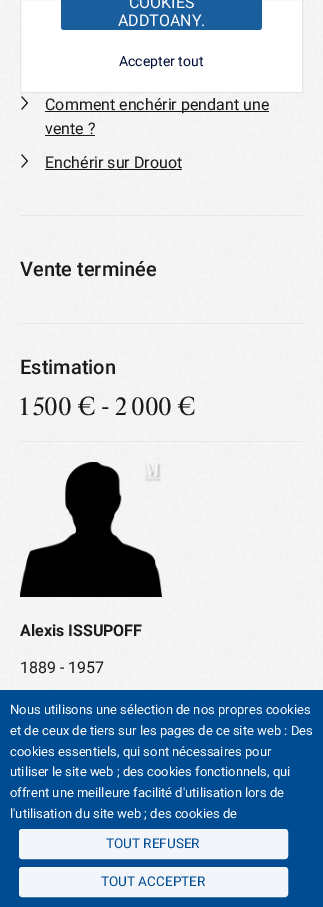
%!PS
<< /PageSize [323 907] >> setpagedevice
/m/moveto load def
/l/rlineto load def
/z/closepath load def
/f/fill load def
/s/stroke load def
/q/gsave load def
/Q_/grestore load def
/w/setlinewidth load def
/C { dup -16 bitshift 255 div exch dup -8 bitshift 255 and 255 div exch 255 and 255 div setrgbcolor } def
/F { [ exch dup neg 0 0 3 -1 roll 0 0 ] selectfont } def
/T { moveto show } def
/R { rectfill } def
/Q { 5 dict begin { /r /h /w /y /x } { exch def } forall
  x r add y moveto x w add y 2 copy h add r arct x w add y h add x 1 index r arct
  x y h add x y r arct x y 2 copy exch w add exch r arct closepath end } def
/I { 5 dict begin { /h /w /y /x /name } { exch def } forall
  gsave x y translate w h scale
  w h 8 [w 0 0 h 0 0] name (r) file false 3 colorimage grestore end } def
0 907 translate 1 -1 scale
4 setmiterlimit
16#FFFFFF C
0 0 323 907 R
(1.rgb) 0 0 323 690 I
16#E6E8ED C
20 215 283 1 R
16#FFFFFF C
20.5 -.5 m 282 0 l 0 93 l -282 0 l z q f Q_
16#E4E5E6 C
s
16#1A5E9E C
61 -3 201 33 3 Q f
/Roboto-Regular 16 F
16#FFFFFF C
(COOKIES) 129 8 T
(ADDTOANY.) 118 26 T
/Roboto-Regular 14 F
16#000F37 C
(Accepter tout) 119 66 T
(2.rgb) 21 96 8 14 I
16#1A1A1A C
45 111 224 1 R
/Roboto-Regular 16 F
(Comment enchérir pendant une) 45 110 T
(vente ?) 45 134 T
45 135 50 1 R
(3.rgb) 21 154 8 14 I
(Enchérir sur Drouot) 45 168 T
45 169 137 1 R
16#E6E8ED C
20 323 283 1 R
/Roboto-Medium 20 F
16#1A1A1A C
(Vente terminée) 20 276 T
16#E6E8ED C
20 441 283 1 R
16#1A1A1A C
(Estimation) 20 374 T
/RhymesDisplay-Regular 25 F
(1 500 € - 2 000 €) 20 415 T
(4.rgb) 20 462 142 135 I
/Roboto-Bold 16 F
(Alexis ISSUPOFF) 20 636 T
/Roboto-Regular 16 F
(1889 - 1957) 20 673 T
16#004C93 C
0 690 323 217 R
/Roboto-Regular 13 F
16#FFFFFF C
(Nous utilisons une sélection de nos propres cookies) 10 714 T
(et de ceux de tiers sur les pages de ce site web : Des) 10 735 T
(cookies essentiels, qui sont nécessaires pour) 10 756 T
(utiliser le site web ; des cookies fonctionnels, qui) 10 776 T
(offrent une meilleure facilité d'utilisation lors de) 10 797 T
(l'utilisation du site web ; des cookies de) 10 818 T
16#F2F6FA C
20 830 267 28 2 Q q f Q_
2 w
s
/Roboto-Regular 13.5 F
16#004C93 C
(TOUT REFUSER) 106 848 T
16#F2F6FA C
20 868 267 28 2 Q q f Q_
s
16#004C93 C
(TOUT ACCEPTER) 101 886 T
showpage
